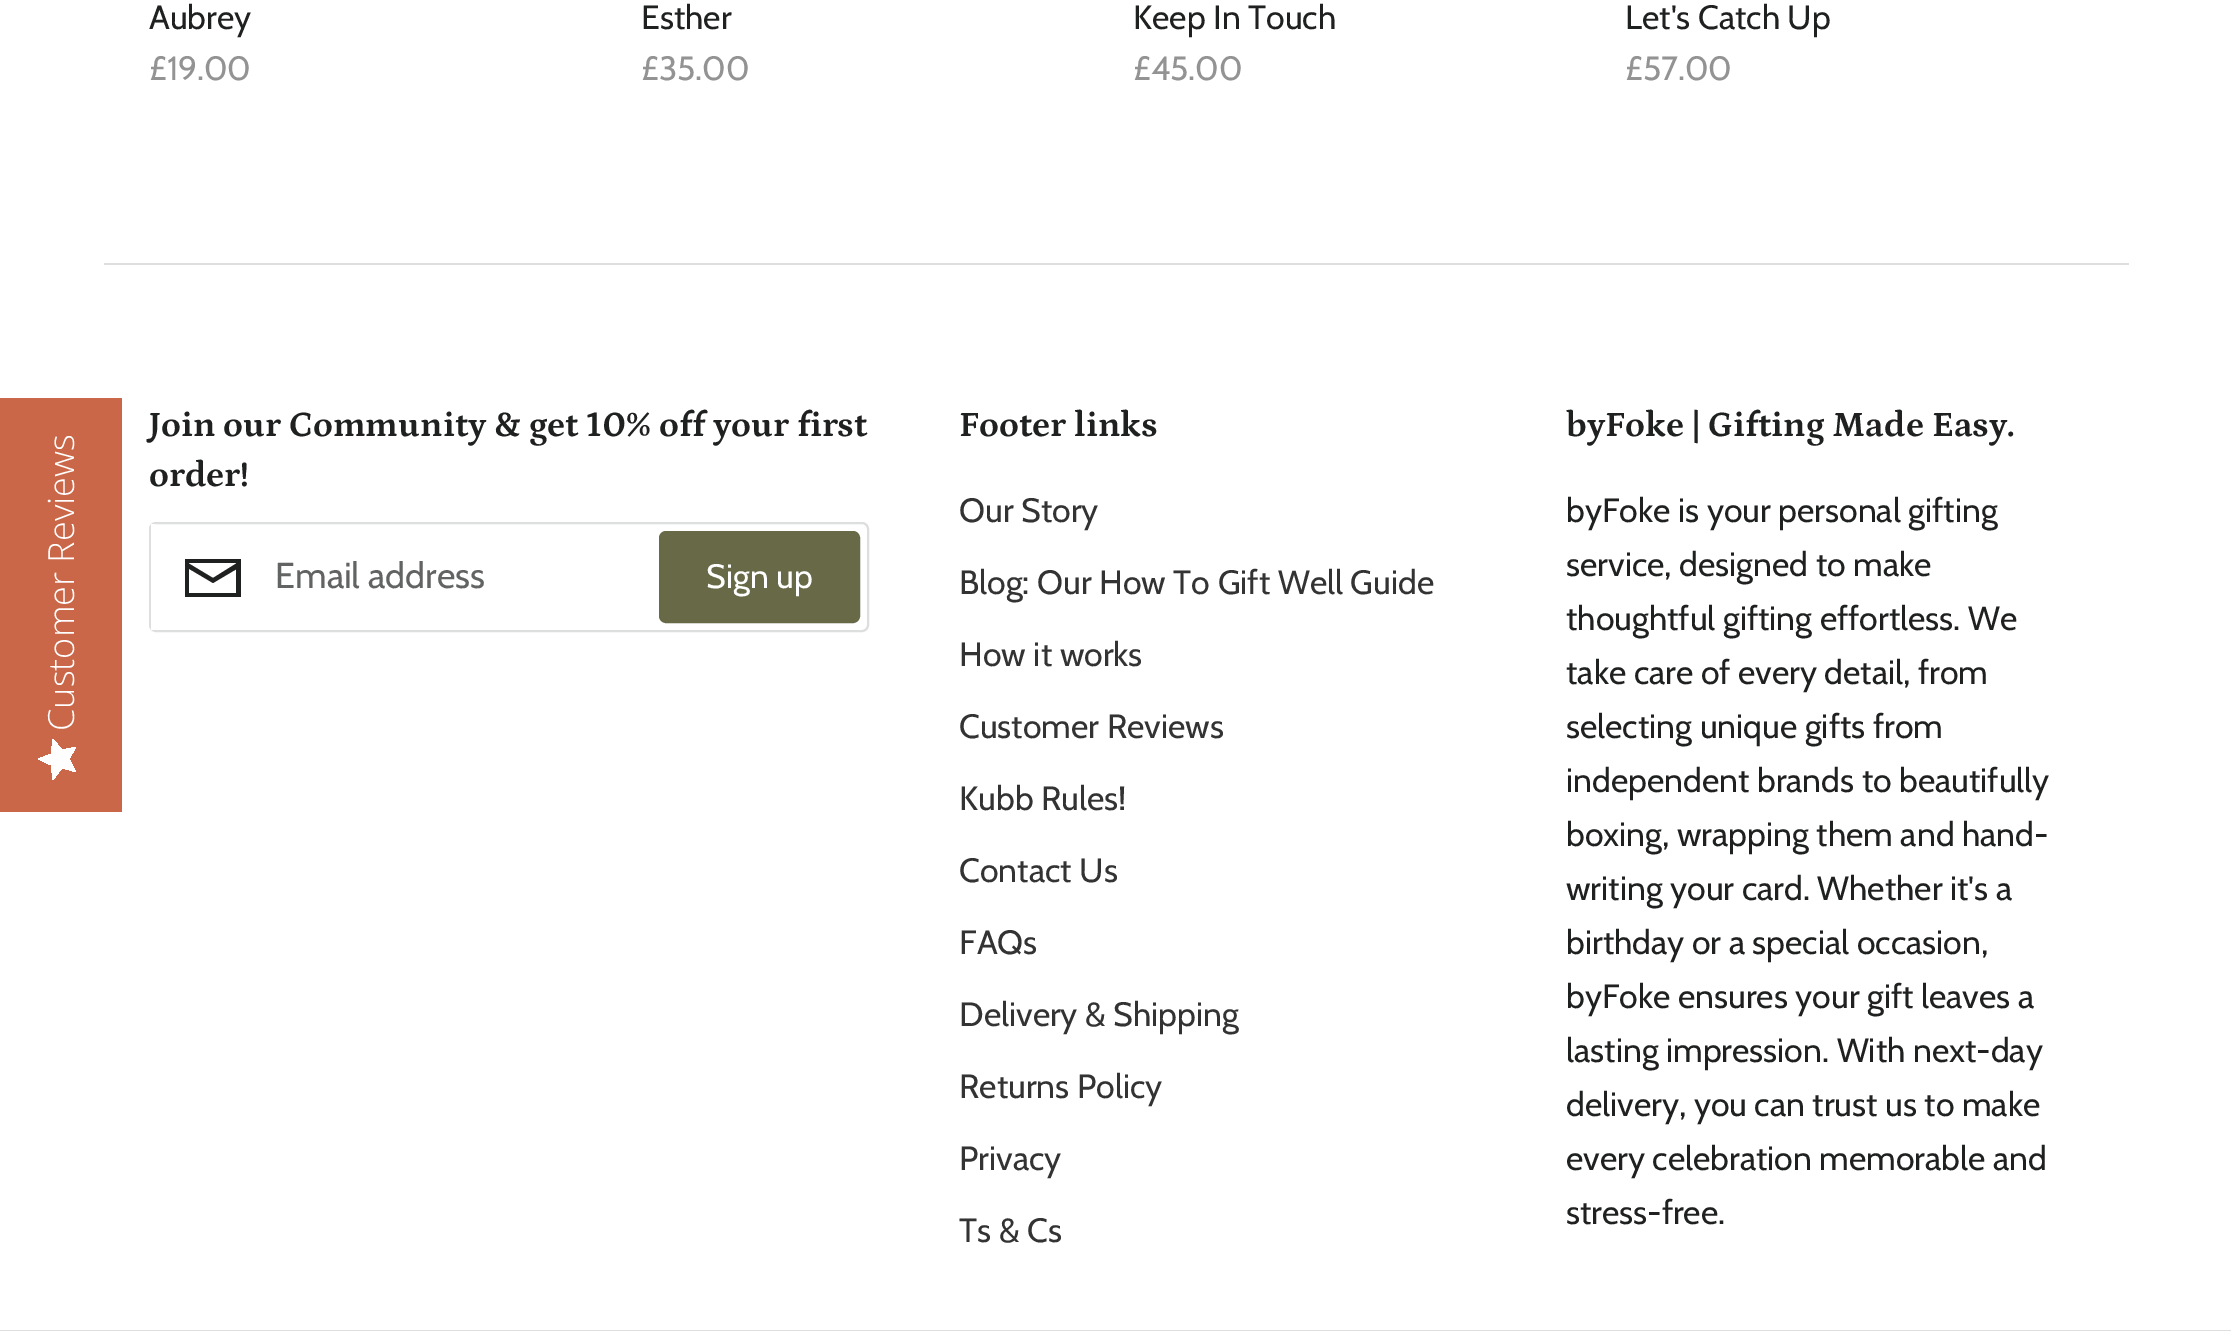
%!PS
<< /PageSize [2231 1331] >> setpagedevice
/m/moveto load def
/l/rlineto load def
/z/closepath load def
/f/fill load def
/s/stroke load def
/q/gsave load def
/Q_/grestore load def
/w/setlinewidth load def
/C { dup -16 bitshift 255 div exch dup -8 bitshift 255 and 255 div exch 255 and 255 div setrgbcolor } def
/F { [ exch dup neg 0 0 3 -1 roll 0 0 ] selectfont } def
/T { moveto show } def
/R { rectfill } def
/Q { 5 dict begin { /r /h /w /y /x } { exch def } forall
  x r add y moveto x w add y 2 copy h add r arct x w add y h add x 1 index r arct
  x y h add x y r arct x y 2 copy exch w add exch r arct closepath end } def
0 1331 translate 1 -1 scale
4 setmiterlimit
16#FFFFFF C
0 0 2231 1331 R
/Cabin-Regular 33.75 F
16#1F2020 C
(Aubrey) 149 29 T
16#939393 C
(£19.00) 149 80 T
16#1F2020 C
(Esther) 641 29 T
16#939393 C
(£35.00) 641 80 T
16#1F2020 C
(Keep In Touch) 1133 29 T
16#939393 C
(£45.00) 1133 80 T
16#1F2020 C
(Let's Catch Up) 1625 29 T
16#939393 C
(£57.00) 1625 80 T
16#CA6749 C
0 398 122 414 R
/OpenSans-Light 36 F
16#FFFFFF C
q 74 731 translate -90 rotate 0 0 m (Customer Reviews) show Q_
q 69 759 m 7 -12 l -14 3 l -9 -11 l -2 15 l -13 5 l 13 6 l 2 15 l 9 -12 l 14 4 l z clip newpath
<< /ShadingType 2 /ColorSpace /DeviceRGB /Coords [38 780 38 739] /Extend [true true] /Function << /FunctionType 2 /Domain [0 1] /C0 [.996 .996 .996] /C1 [.996 .996 .996] /N 1 >> >> shfill Q_
16#DDDEDE C
104 263 2025 2 R
/Petrona-Bold 36 F
16#1F2020 C
(Join our Community & get 10% off your first) 149 436 T
(order!) 149 486 T
16#DDDEDE C
2 w
150 523 718 108 6 Q s
q
185 549 58 59 rectclip
16#1F2020 C
184 559 m 57 0 l 0 38 l -57 0 l z 189 563 m 0 30 l 47 0 l 0 -30 l z f
Q_
16#1F2020 C
214 579 m -3 0 l 2 -1 l z 237 563 m 3 4 l -27 16 l -27 -16 l 2 -4 l 25 15 l z f
16#FFFFFF C
151 524 4 106 R
/Cabin-Regular 36 F
16#626363 C
(Email address) 275 588 T
16#686A47 C
660 532 199 90 6 Q q f Q_
s
/Cabin-Regular 33.75 F
16#FFFFFF C
(Sign up) 706 588 T
/Petrona-Bold 36 F
16#1F2020 C
(Footer links) 959 436 T
/Cabin-Regular 33.75 F
16#333333 C
(Our Story) 959 522 T
(Blog: Our How To Gift Well Guide) 959 594 T
(How it works) 959 666 T
(Customer Reviews) 959 738 T
(Kubb Rules!) 959 810 T
(Contact Us) 959 882 T
(FAQs) 959 954 T
(Delivery & Shipping) 959 1026 T
(Returns Policy) 959 1098 T
(Privacy) 959 1170 T
(Ts & Cs) 959 1242 T
/Petrona-Bold 36 F
16#1F2020 C
(byFoke | Gifting Made Easy.) 1566 436 T
/Cabin-Regular 33.75 F
(byFoke is your personal gifting) 1566 522 T
(service, designed to make) 1566 576 T
(thoughtful gifting effortless. We) 1566 630 T
(take care of every detail, from) 1566 684 T
(selecting unique gifts from) 1566 738 T
(independent brands to beautifully) 1566 792 T
(boxing, wrapping them and hand-) 1566 846 T
(writing your card. Whether it's a) 1566 900 T
(birthday or a special occasion,) 1566 954 T
(byFoke ensures your gift leaves a) 1566 1008 T
(lasting impression. With next-day) 1566 1062 T
(delivery, you can trust us to make) 1566 1116 T
(every celebration memorable and) 1566 1170 T
(stress-free.) 1566 1224 T
16#DDDEDE C
0 1330 2231 1 R
showpage
